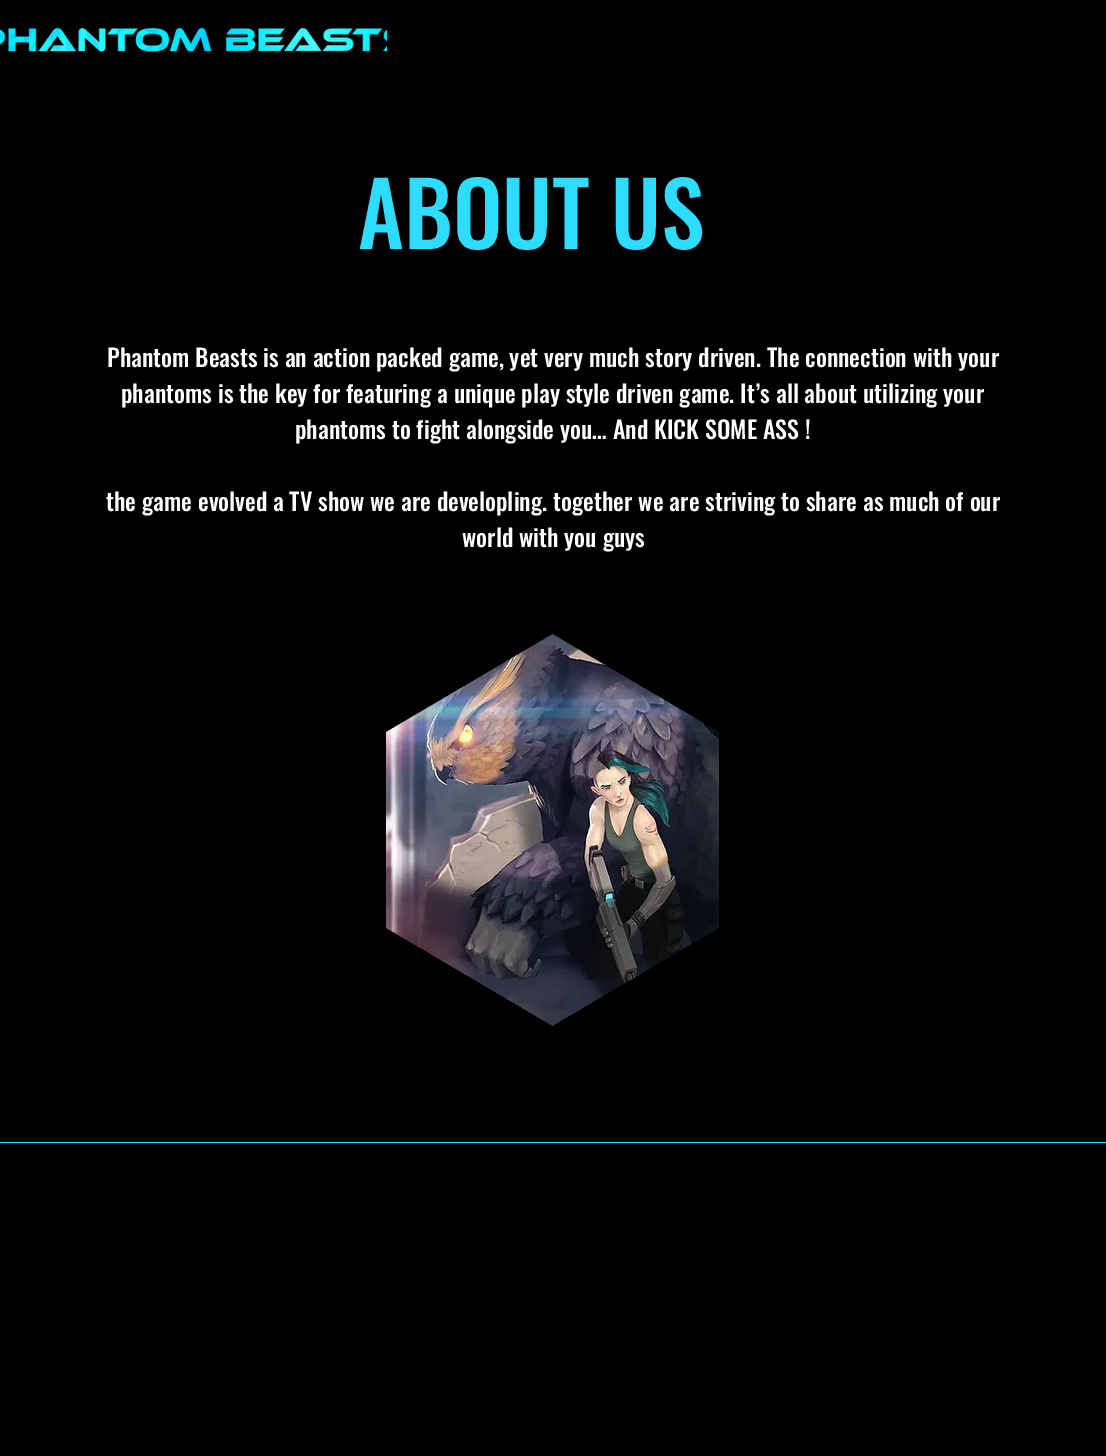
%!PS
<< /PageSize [1106 1456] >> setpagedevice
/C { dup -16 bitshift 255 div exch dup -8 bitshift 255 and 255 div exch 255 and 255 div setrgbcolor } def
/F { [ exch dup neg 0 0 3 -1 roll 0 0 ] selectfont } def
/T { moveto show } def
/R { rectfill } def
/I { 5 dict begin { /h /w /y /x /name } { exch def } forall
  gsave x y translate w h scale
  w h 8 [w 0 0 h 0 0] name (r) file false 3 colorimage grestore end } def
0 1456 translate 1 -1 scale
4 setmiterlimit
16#000000 C
0 0 1106 1456 R
(1.rgb) 0 27 387 25 I
/Oswald-Medium 88 F
16#2EDCFF C
(ABOUT US) 358 249 T
/Oswald-Medium 24 F
16#FFFFFF C
(Phantom Beasts is an action packed game, yet very much story driven. The connection with your) 107 367 T
(phantoms is the key for featuring a unique play style driven game. It’s all about utilizing your) 121 403 T
(phantoms to fight alongside you… And KICK SOME ASS !) 295 439 T
(the game evolved a TV show we are developling. together we are striving to share as much of our) 106 511 T
(world with you guys) 462 547 T
(2.rgb) 386 634 333 392 I
16#2EDCFF C
0 1142 1106 1 R
showpage
